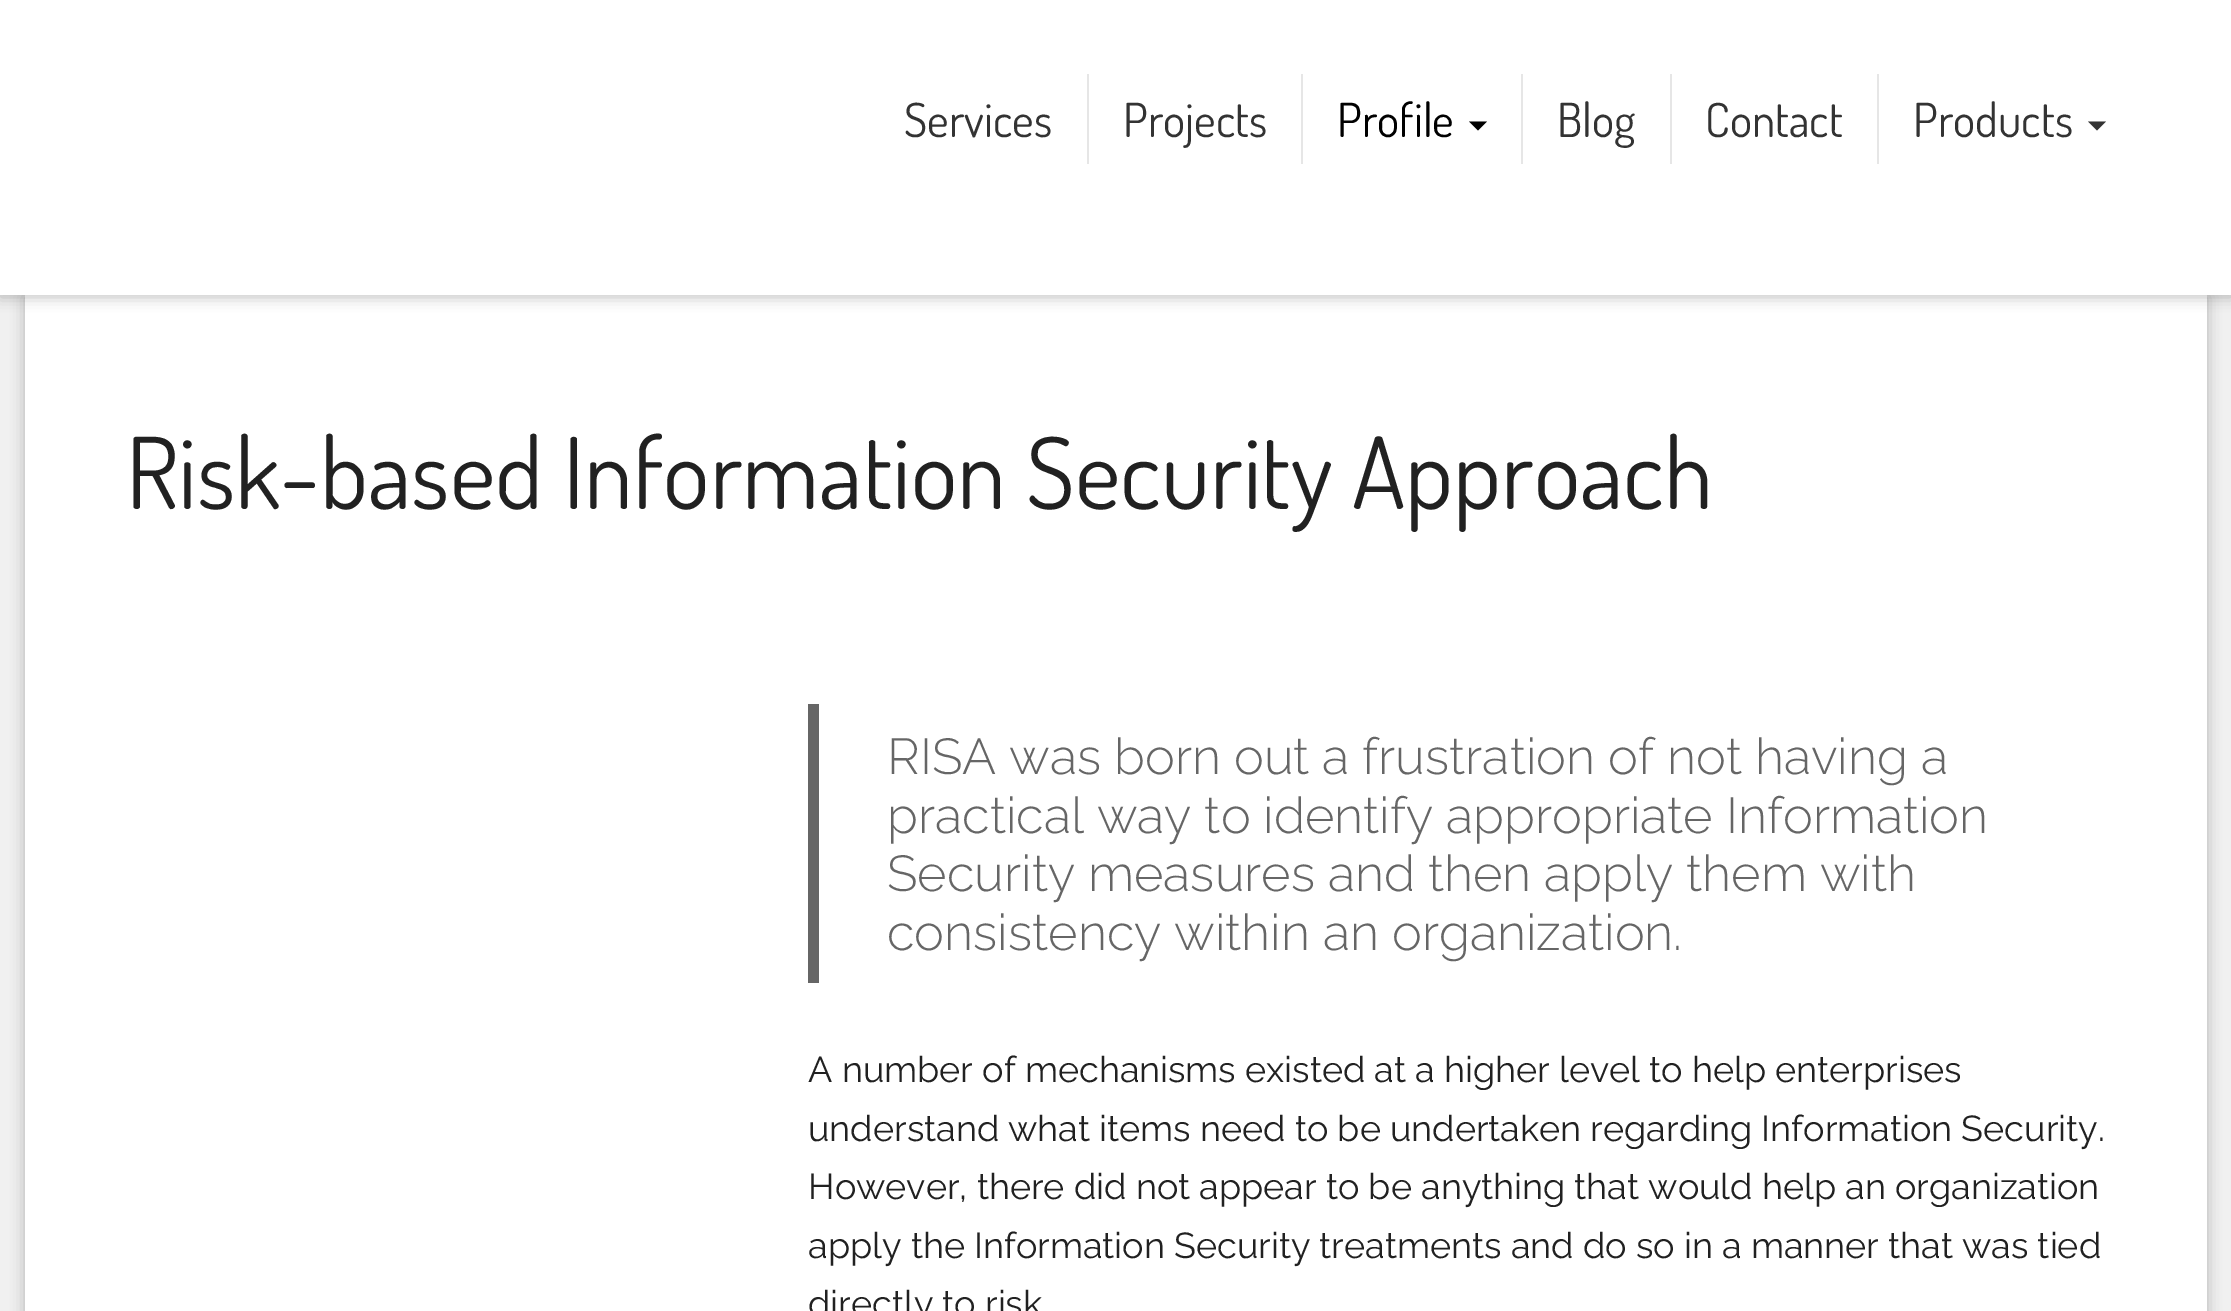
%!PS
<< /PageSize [2231 1311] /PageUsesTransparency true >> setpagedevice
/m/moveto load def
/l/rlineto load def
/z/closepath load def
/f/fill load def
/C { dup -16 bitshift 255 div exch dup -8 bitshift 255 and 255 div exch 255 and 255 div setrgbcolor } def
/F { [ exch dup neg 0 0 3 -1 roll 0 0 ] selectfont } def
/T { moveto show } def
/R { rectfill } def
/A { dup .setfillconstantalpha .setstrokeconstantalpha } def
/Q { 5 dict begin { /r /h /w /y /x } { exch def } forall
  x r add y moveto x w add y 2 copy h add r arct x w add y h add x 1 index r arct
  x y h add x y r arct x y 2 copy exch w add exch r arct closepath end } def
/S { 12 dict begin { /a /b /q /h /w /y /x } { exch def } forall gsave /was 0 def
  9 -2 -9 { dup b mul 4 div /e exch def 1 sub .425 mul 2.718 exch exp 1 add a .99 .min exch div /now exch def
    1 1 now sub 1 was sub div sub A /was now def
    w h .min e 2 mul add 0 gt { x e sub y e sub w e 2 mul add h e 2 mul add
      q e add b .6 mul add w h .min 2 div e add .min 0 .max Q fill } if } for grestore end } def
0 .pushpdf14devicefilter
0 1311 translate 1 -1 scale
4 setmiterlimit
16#F0F0F0 C
0 0 2231 1311 R
16#000000 C
25 297 2182 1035 0 7 .25 S
16#FFFFFF C
25 295 2182 1016 R
16#000000 C
0 -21 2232 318 0 7 .25 S
16#FFFFFF C
0 0 2231 295 R
/Dosis-Regular 47 F
16#333333 C
(Services) 904 137 T
16#E6E6E6 C
1087 74 2 90 R
16#333333 C
(Projects) 1123 137 T
16#E6E6E6 C
1301 74 2 90 R
16#000000 C
(Profile) 1337 137 T
1469 121.5 m 18 0 l -9 9 l z f
16#E6E6E6 C
1521 74 2 90 R
16#333333 C
(Blog) 1557 137 T
16#E6E6E6 C
1670 74 2 90 R
16#333333 C
(Contact) 1705 137 T
16#E6E6E6 C
1877 74 2 90 R
16#333333 C
(Products) 1913 137 T
2088 121.5 m 18 0 l -9 9 l z f
/Dosis-Regular 99 F
16#212121 C
(Risk-based Information Security Approach) 126 509 T
16#666666 C
808 704 11 279 R
/Raleway-Light 50.4 F
(RISA was born out a frustration of not having a) 887 774 T
(practical way to identify appropriate Information) 887 833 T
(Security measures and then apply them with) 887 891 T
(consistency within an organization.) 887 950 T
/Raleway-Regular 36 F
16#212121 C
(A number of mechanisms existed at a higher level to help enterprises) 808 1082 T
(understand what items need to be undertaken regarding Information Security.) 808 1141 T
(However, there did not appear to be anything that would help an organization) 808 1199 T
(apply the Information Security treatments and do so in a manner that was tied) 808 1258 T
(directly to risk) 808 1316 T
.poppdf14devicefilter showpage
